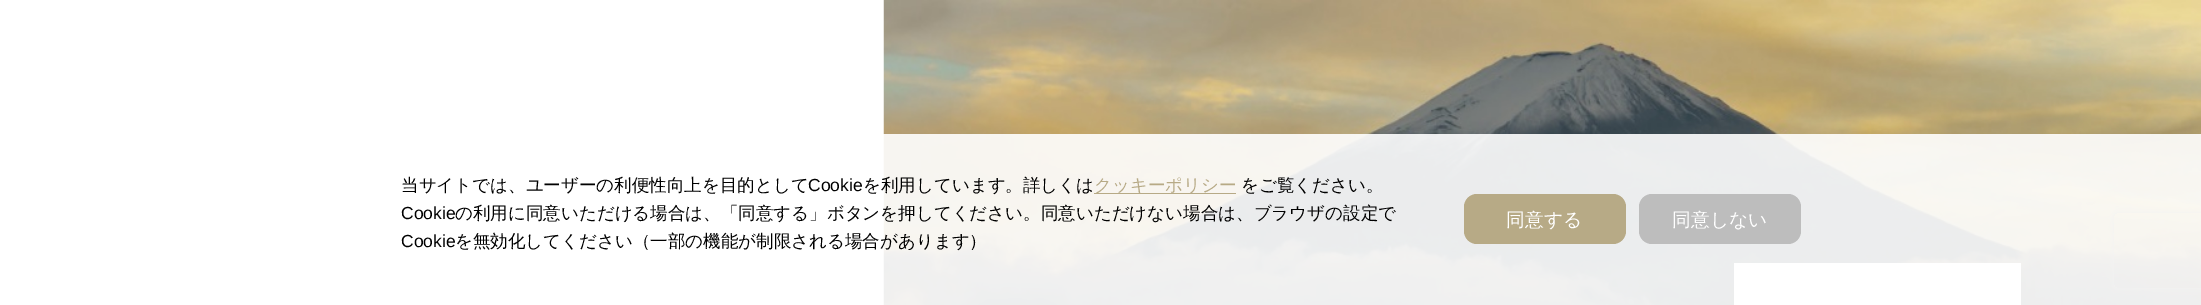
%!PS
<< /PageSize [2201 305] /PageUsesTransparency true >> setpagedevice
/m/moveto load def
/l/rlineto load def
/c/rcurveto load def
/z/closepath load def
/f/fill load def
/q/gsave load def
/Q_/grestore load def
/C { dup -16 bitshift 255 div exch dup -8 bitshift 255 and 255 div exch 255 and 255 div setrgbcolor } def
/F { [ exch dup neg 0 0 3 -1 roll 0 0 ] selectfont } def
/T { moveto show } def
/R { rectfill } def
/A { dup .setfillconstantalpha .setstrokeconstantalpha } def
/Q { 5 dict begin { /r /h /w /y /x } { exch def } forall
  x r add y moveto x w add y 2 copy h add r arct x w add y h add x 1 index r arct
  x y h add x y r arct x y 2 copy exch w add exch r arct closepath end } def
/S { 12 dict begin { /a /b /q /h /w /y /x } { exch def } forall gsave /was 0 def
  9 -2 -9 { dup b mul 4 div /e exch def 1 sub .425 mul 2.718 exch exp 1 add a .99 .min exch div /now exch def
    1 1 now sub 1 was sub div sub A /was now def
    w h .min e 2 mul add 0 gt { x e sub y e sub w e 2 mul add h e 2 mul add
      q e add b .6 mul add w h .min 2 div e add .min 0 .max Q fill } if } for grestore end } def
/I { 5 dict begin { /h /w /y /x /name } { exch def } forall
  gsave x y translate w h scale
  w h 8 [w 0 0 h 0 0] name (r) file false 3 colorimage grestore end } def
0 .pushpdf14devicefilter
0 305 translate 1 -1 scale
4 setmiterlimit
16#FFFFFF C
0 0 2201 305 R
(1.rgb) 883 0 1318 305 I
16#000000 C
1734 269 287 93 0 19 .2 S
16#FFFFFF C
1734 263 287 42 R
q
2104 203 m 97 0 l 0 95 l -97 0 l z 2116.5 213 m 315 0 l 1.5 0 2.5 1 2.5 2.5 c 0 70 l 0 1.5 -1 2.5 -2.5 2.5 c -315 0 l -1.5 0 -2.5 -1 -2.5 -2.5 c 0 -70 l 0 -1.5 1 -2.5 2.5 -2.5 c z eoclip newpath
16#808080 C
2114 213 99 75 2.5 3 1 S
Q_
0.9 A
883 134 1318 171 R
/WenQuanYiZenHei-Medium 17.5 F
1 A
16#000000 C
(当サイトでは、ユーザーの利便性向上を目的として) 401 191 T
/LiberationSans-Regular 17.5 F
(Cookie) 808 191 T
/WenQuanYiZenHei-Medium 17.5 F
(を利用しています。詳しくは) 863 191 T
16#B7AA86 C
1094 193 142 1 R
(クッキーポリシー) 1094 191 T
16#000000 C
(をご覧ください。) 1241 191 T
/LiberationSans-Regular 17.5 F
(Cookie) 401 219 T
/WenQuanYiZenHei-Medium 17.5 F
(の利用に同意いただける場合は、「同意する」ボタンを押してください。同意いただけない場合は、ブラウザの設定で) 455 219 T
/LiberationSans-Regular 17.5 F
(Cookie) 401 247 T
/WenQuanYiZenHei-Medium 17.5 F
(を無効化してください（一部の機能が制限される場合があります）) 455 247 T
16#B7AA86 C
1464 194 162 50 13 Q f
/WenQuanYiZenHei-Medium 18.75 F
16#FFFFFF C
(同意する) 1506 226 T
16#BDBDBD C
1639 194 162 50 13 Q f
16#FFFFFF C
(同意しない) 1672 226 T
.poppdf14devicefilter showpage
